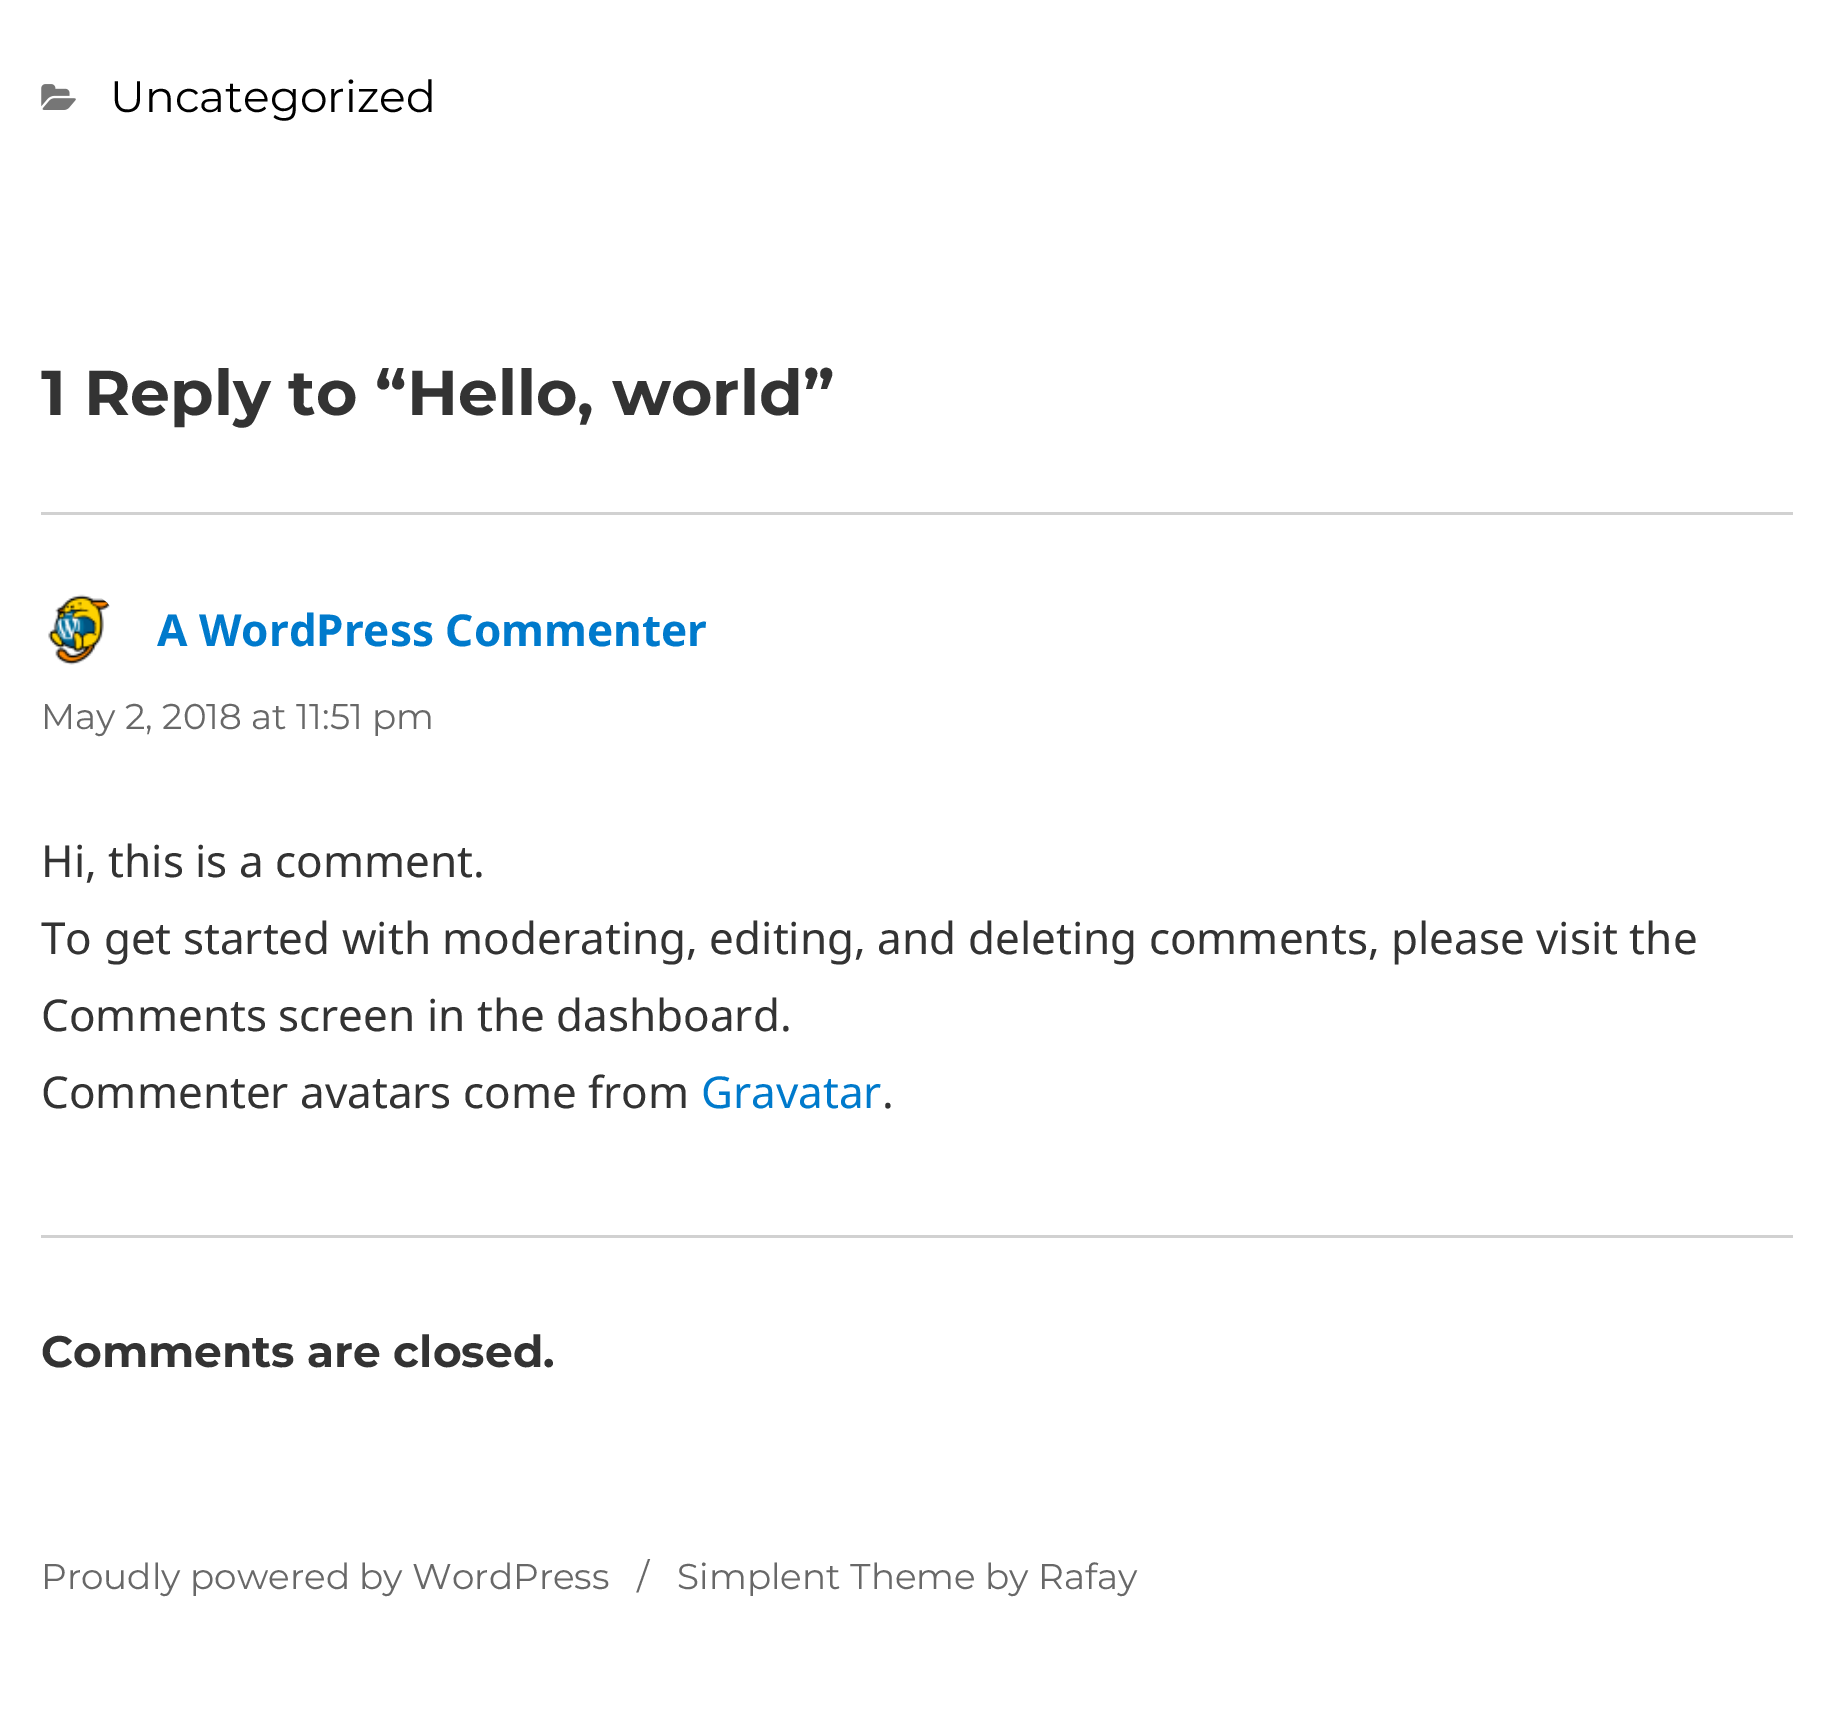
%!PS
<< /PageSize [1833 1730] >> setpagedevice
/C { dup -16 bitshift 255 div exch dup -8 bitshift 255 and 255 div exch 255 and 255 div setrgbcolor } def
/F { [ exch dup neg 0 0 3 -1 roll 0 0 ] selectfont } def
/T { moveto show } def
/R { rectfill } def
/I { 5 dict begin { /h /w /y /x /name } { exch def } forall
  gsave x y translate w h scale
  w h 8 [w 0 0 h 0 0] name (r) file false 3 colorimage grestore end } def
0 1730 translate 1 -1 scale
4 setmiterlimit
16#FFFFFF C
0 0 1833 1730 R
(1.rgb) 41 84 35 26 I
/Montserrat-Regular 44 F
16#000000 C
(Uncategorized) 110 112 T
/Montserrat-Bold 63.25 F
16#333333 C
(1 Reply to “Hello, world”) 41 415 T
16#D1D1D1 C
41 512 1752 3 R
(2.rgb) 48 594 62 71 I
/NotoSans-Bold 44 F
16#007ACC C
(A WordPress Commenter) 157 646 T
/Montserrat-Regular 35.75 F
16#686868 C
(May 2, 2018 at 11:51 pm) 41 729 T
/NotoSans-Regular 44 F
16#333333 C
(Hi, this is a comment.) 41 877 T
(To get started with moderating, editing, and deleting comments, please visit the) 41 954 T
(Comments screen in the dashboard.) 41 1031 T
(Commenter avatars come from) 41 1108 T
16#007ACC C
(Gravatar) 701 1108 T
16#333333 C
(.) 882 1108 T
16#D1D1D1 C
41 1235 1752 3 R
/Montserrat-Bold 44 F
16#333333 C
(Comments are closed.) 41 1367 T
/Montserrat-Regular 35.75 F
16#686868 C
(Proudly powered by WordPress) 41 1589 T
(/) 637 1589 T
(Simplent Theme by Rafay) 677 1589 T
showpage
